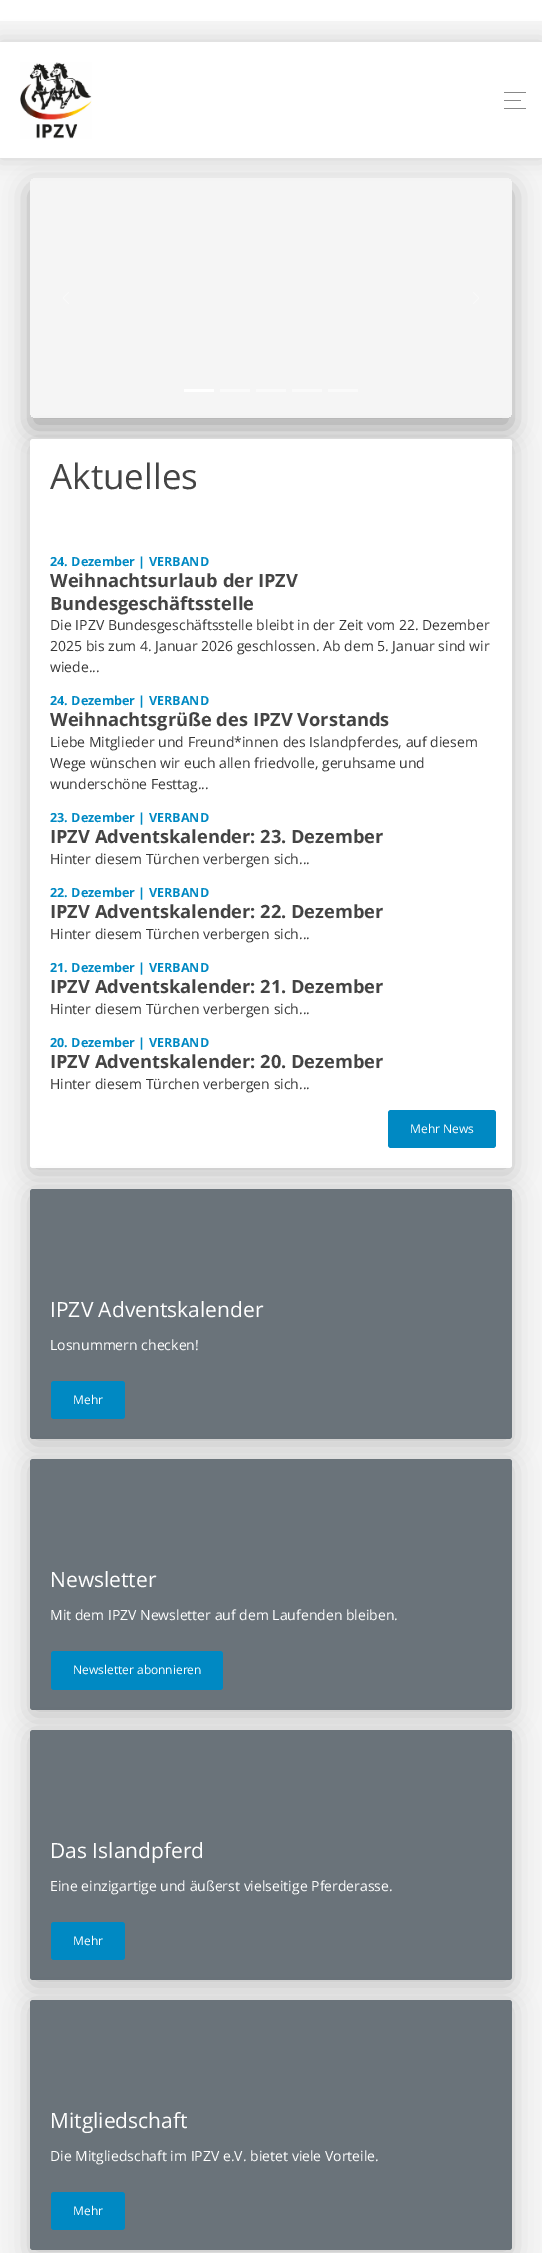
%!PS
<< /PageSize [542 2253] /PageUsesTransparency true >> setpagedevice
/m/moveto load def
/l/rlineto load def
/c/rcurveto load def
/z/closepath load def
/f/fill load def
/q/gsave load def
/Q_/grestore load def
/C { dup -16 bitshift 255 div exch dup -8 bitshift 255 and 255 div exch 255 and 255 div setrgbcolor } def
/F { [ exch dup neg 0 0 3 -1 roll 0 0 ] selectfont } def
/T { moveto show } def
/R { rectfill } def
/A { dup .setfillconstantalpha .setstrokeconstantalpha } def
/Q { 5 dict begin { /r /h /w /y /x } { exch def } forall
  x r add y moveto x w add y 2 copy h add r arct x w add y h add x 1 index r arct
  x y h add x y r arct x y 2 copy exch w add exch r arct closepath end } def
/S { 12 dict begin { /a /b /q /h /w /y /x } { exch def } forall gsave /was 0 def
  9 -2 -9 { dup b mul 4 div /e exch def 1 sub .425 mul 2.718 exch exp 1 add a .99 .min exch div /now exch def
    1 1 now sub 1 was sub div sub A /was now def
    w h .min e 2 mul add 0 gt { x e sub y e sub w e 2 mul add h e 2 mul add
      q e add b .6 mul add w h .min 2 div e add .min 0 .max Q fill } if } for grestore end } def
/I { 5 dict begin { /h /w /y /x /name } { exch def } forall
  gsave x y translate w h scale
  w h 8 [w 0 0 h 0 0] name (r) file false 3 colorimage grestore end } def
0 .pushpdf14devicefilter
0 2253 translate 1 -1 scale
4 setmiterlimit
16#F5F5F5 C
0 0 542 2253 R
16#FFFFFF C
0 0 542 21 R
16#000000 C
0 42 542 116 0 10 .15 S
q
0 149 m 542 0 l 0 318 l -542 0 l z 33 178 m 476 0 l 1.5 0 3 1.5 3 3 c 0 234 l 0 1.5 -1.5 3 -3 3 c -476 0 l -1.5 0 -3 -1.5 -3 -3 c 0 -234 l 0 -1.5 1.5 -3 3 -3 c z eoclip newpath
30 188 482 240 3 12.5 .3 S
Q_
16#FFFFFF C
0 42 542 116 R
(1.rgb) 20 62 72 77 I
16#888888 C
504 92 22 1 .5 Q f
504 100 17 1 .5 Q f
504 108 22 1 .5 Q f
(2.rgb) 63 292 6 12 I
(3.rgb) 473 292 6 12 I
16#FFFFFF C
184 389 30 3 R
16#FAFAFA C
220 389 30 3 R
256 389 30 3 R
292 389 30 3 R
328 389 30 3 R
16#000000 C
30 444 482 729 3 12.5 .2 S
16#FFFFFF C
30 439 482 729 3 Q f
/OpenSans-Regular 35 F
16#444444 C
(Aktuelles) 50 489 T
/OpenSans-Bold 12.6 F
16#0089C3 C
(24. Dezember | VERBAND) 50 566 T
/OpenSans-Bold 18.25 F
16#444444 C
(Weihnachtsurlaub der IPZV) 50 587 T
(Bundesgeschäftsstelle) 50 610 T
/OpenSans-Regular 14 F
16#363636 C
(Die IPZV Bundesgeschäftsstelle bleibt in der Zeit vom 22. Dezember) 50 630 T
(2025 bis zum 4. Januar 2026 geschlossen. Ab dem 5. Januar sind wir) 50 651 T
(wiede...) 50 672 T
/OpenSans-Bold 12.6 F
16#0089C3 C
(24. Dezember | VERBAND) 50 705 T
/OpenSans-Bold 18.25 F
16#444444 C
(Weihnachtsgrüße des IPZV Vorstands) 50 726 T
/OpenSans-Regular 14 F
16#363636 C
(Liebe Mitglieder und Freund*innen des Islandpferdes, auf diesem) 50 747 T
(Wege wünschen wir euch allen friedvolle, geruhsame und) 50 768 T
(wunderschöne Festtag...) 50 789 T
/OpenSans-Bold 12.6 F
16#0089C3 C
(23. Dezember | VERBAND) 50 822 T
/OpenSans-Bold 18.25 F
16#444444 C
(IPZV Adventskalender: 23. Dezember) 50 843 T
/OpenSans-Regular 14 F
16#363636 C
(Hinter diesem Türchen verbergen sich...) 50 864 T
/OpenSans-Bold 12.6 F
16#0089C3 C
(22. Dezember | VERBAND) 50 897 T
/OpenSans-Bold 18.25 F
16#444444 C
(IPZV Adventskalender: 22. Dezember) 50 918 T
/OpenSans-Regular 14 F
16#363636 C
(Hinter diesem Türchen verbergen sich...) 50 939 T
/OpenSans-Bold 12.6 F
16#0089C3 C
(21. Dezember | VERBAND) 50 972 T
/OpenSans-Bold 18.25 F
16#444444 C
(IPZV Adventskalender: 21. Dezember) 50 993 T
/OpenSans-Regular 14 F
16#363636 C
(Hinter diesem Türchen verbergen sich...) 50 1014 T
/OpenSans-Bold 12.6 F
16#0089C3 C
(20. Dezember | VERBAND) 50 1047 T
/OpenSans-Bold 18.25 F
16#444444 C
(IPZV Adventskalender: 20. Dezember) 50 1068 T
/OpenSans-Regular 14 F
16#363636 C
(Hinter diesem Türchen verbergen sich...) 50 1089 T
16#0089C3 C
388 1110 108 38 3 Q f
/OpenSans-Regular 12 F
16#FFFFFF C
(Mehr News) 410 1133 T
16#000000 C
30 1194 482 250 3 12.5 .2 S
16#B0BFCA C
30 1189 482 250 3 Q f
0.4 A
16#010101 C
30 1189 482 250 3 Q f
/OpenSans-Regular 21 F
1 A
16#FFFFFF C
(IPZV Adventskalender) 50 1317 T
/OpenSans-Regular 14 F
(Losnummern checken!) 50 1350 T
16#0089C3 C
51 1381 74 38 3 Q f
/OpenSans-Regular 12 F
16#FFFFFF C
(Mehr) 73 1404 T
16#000000 C
30 1464 482 251 3 12.5 .2 S
16#B0BFCA C
30 1459 482 251 3 Q f
0.4 A
16#010101 C
30 1459 482 251 3 Q f
/OpenSans-Regular 21 F
1 A
16#FFFFFF C
(Newsletter) 50 1587 T
/OpenSans-Regular 14 F
(Mit dem IPZV Newsletter auf dem Laufenden bleiben.) 50 1620 T
16#0089C3 C
51 1651 172 39 3 Q f
/OpenSans-Regular 12 F
16#FFFFFF C
(Newsletter abonnieren) 73 1674 T
16#000000 C
30 1735 482 250 3 12.5 .2 S
16#B0BFCA C
30 1730 482 250 3 Q f
0.4 A
16#010101 C
30 1730 482 250 3 Q f
/OpenSans-Regular 21 F
1 A
16#FFFFFF C
(Das Islandpferd) 50 1858 T
/OpenSans-Regular 14 F
(Eine einzigartige und äußerst vielseitige Pferderasse.) 50 1891 T
16#0089C3 C
51 1922 74 38 3 Q f
/OpenSans-Regular 12 F
16#FFFFFF C
(Mehr) 73 1945 T
16#000000 C
30 2005 482 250 3 12.5 .2 S
16#B0BFCA C
30 2000 482 250 3 Q f
0.4 A
16#010101 C
30 2000 482 250 3 Q f
/OpenSans-Regular 21 F
1 A
16#FFFFFF C
(Mitgliedschaft) 50 2128 T
/OpenSans-Regular 14 F
(Die Mitgliedschaft im IPZV e.V. bietet viele Vorteile.) 50 2161 T
16#0089C3 C
51 2192 74 38 3 Q f
/OpenSans-Regular 12 F
16#FFFFFF C
(Mehr) 73 2215 T
.poppdf14devicefilter showpage
